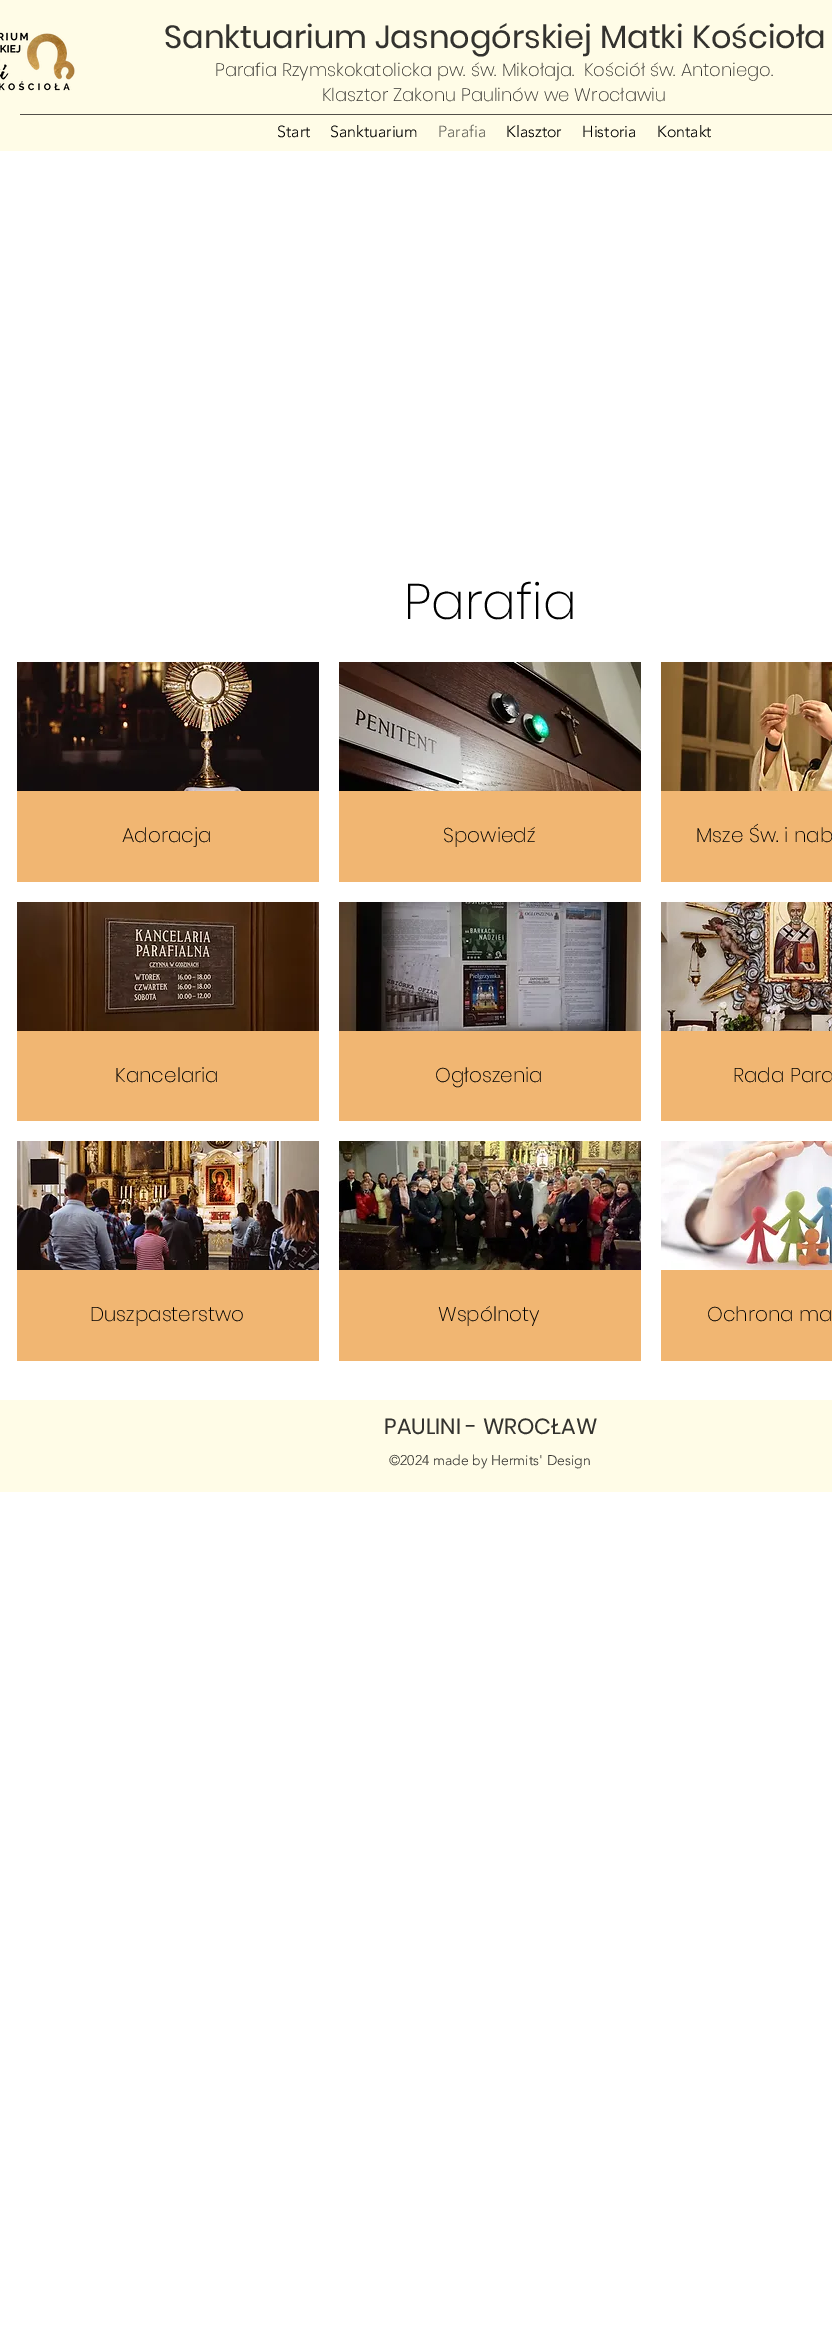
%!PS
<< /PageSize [832 2344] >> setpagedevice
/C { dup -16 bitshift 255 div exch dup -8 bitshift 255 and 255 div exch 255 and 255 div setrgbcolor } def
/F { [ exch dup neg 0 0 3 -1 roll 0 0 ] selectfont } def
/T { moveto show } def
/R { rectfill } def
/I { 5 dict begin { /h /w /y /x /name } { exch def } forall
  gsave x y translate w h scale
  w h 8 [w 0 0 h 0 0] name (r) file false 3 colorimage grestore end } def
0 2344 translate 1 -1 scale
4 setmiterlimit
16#FFFFFF C
0 0 832 2344 R
16#FFFCE7 C
0 0 832 151 R
(1.rgb) 0 32 75 59 I
/Poppins-Regular 32 F
16#33322E C
(Sanktuarium Jasnogórskiej Matki Kościoła) 164 48 T
/Poppins-ExtraLight 18 F
(Parafia Rzymskokatolicka pw. św. Mikołaja.) 215 76 T
(Kościół św. Antoniego.) 584 76 T
(Klasztor Zakonu Paulinów we Wrocławiu) 322 101 T
16#52504A C
20 114 812 1 R
/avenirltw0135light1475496-Light 16 F
16#000000 C
(Start) 277 137 T
(Sanktuarium) 330 137 T
16#66655C C
(Parafia) 438 137 T
16#000000 C
(Klasztor) 506 137 T
(Historia) 582 137 T
(Kontakt) 657 137 T
/Poppins-ExtraLight 50 F
(Parafia) 404 619 T
16#F1B672 C
17 791 302 91 R
(2.rgb) 17 662 302 129 I
/Poppins-ExtraLight 20 F
16#000000 C
(Adoracja) 122 842 T
16#F1B672 C
17 1031 302 90 R
(3.rgb) 17 902 302 129 I
16#000000 C
(Kancelaria) 115 1082 T
16#F1B672 C
17 1270 302 91 R
(4.rgb) 17 1141 302 129 I
16#000000 C
(Duszpasterstwo) 90 1321 T
16#F1B672 C
339 791 302 91 R
(5.rgb) 339 662 302 129 I
16#000000 C
(Spowiedź) 443 842 T
16#F1B672 C
339 1031 302 90 R
(6.rgb) 339 902 302 129 I
16#000000 C
(Ogłoszenia) 435 1082 T
16#F1B672 C
339 1270 302 91 R
(7.rgb) 339 1141 302 129 I
16#000000 C
(Wspólnoty) 438 1321 T
16#F1B672 C
661 791 171 91 R
(8.rgb) 661 662 171 129 I
16#000000 C
(Msze Św. i nab) 696 842 T
16#F1B672 C
661 1031 171 90 R
(9.rgb) 661 902 171 129 I
16#000000 C
(Rada Para) 733 1082 T
16#F1B672 C
661 1270 171 91 R
(10.rgb) 661 1141 171 129 I
16#000000 C
(Ochrona ma) 707 1321 T
16#FFFCE7 C
0 1400 832 92 R
/Poppins-Regular 22 F
16#33322E C
(PAULINI - WROCŁAW) 384 1434 T
/avenirltw0135light1475496-Light 14 F
(©2024 made by Hermits' Design) 389 1465 T
showpage
